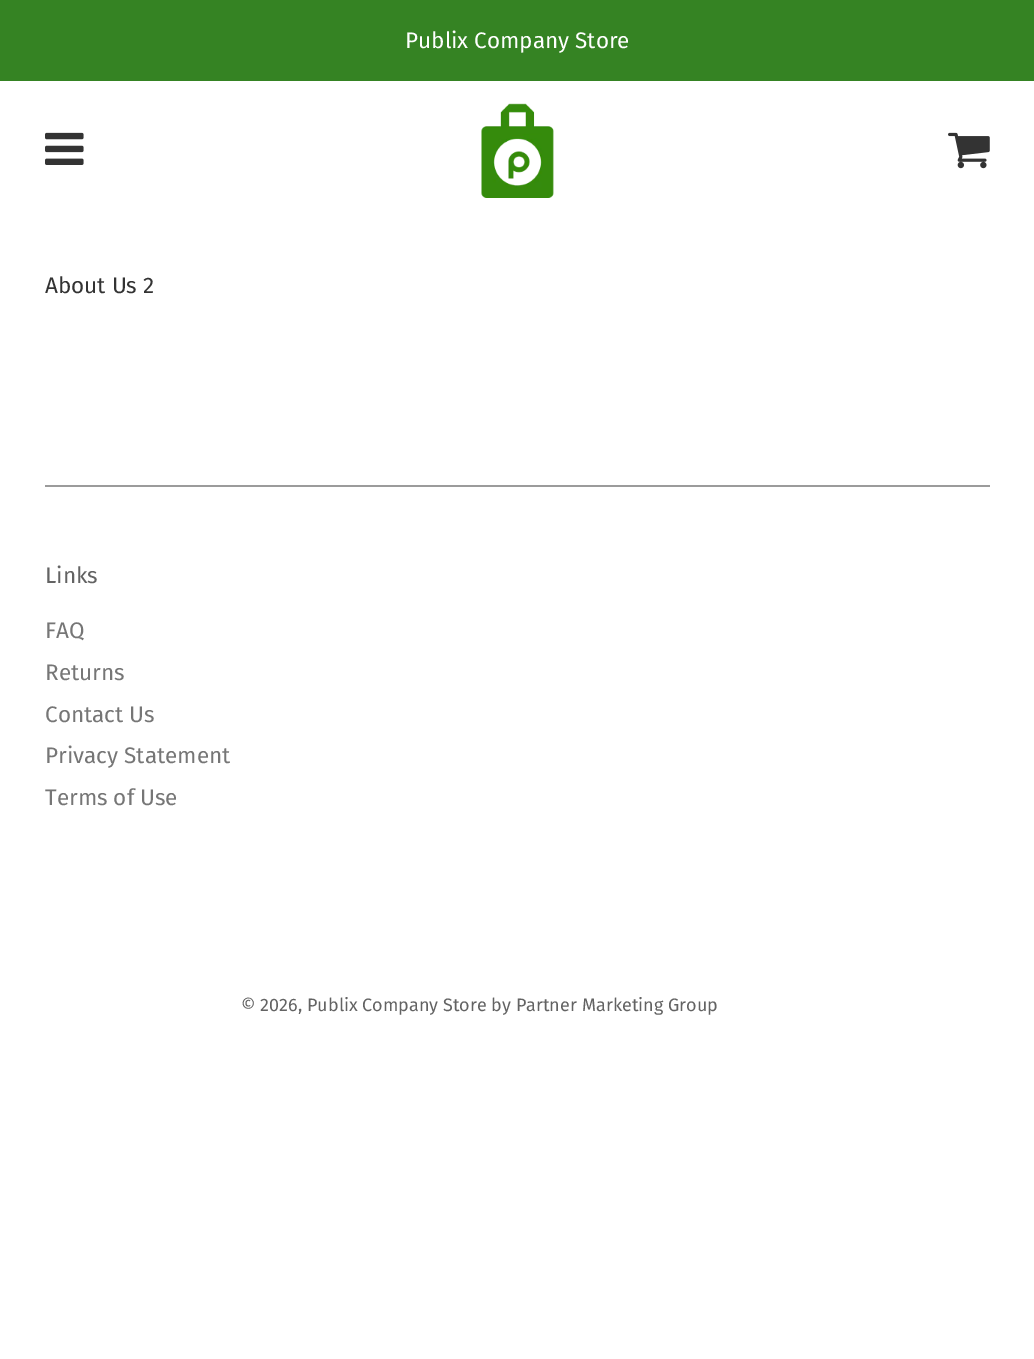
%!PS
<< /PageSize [1034 1359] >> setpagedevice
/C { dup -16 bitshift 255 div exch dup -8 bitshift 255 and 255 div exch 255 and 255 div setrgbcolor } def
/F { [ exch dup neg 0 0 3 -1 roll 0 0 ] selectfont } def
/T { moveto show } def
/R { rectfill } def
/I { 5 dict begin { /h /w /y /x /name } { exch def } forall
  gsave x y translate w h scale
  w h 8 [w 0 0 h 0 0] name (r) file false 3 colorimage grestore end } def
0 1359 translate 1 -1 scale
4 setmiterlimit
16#FFFFFF C
0 0 1034 1359 R
16#358323 C
0 0 1034 81 R
/FiraSans-Regular 22.5 F
16#FFFFFF C
(Publix Company Store) 405 48 T
(1.rgb) 45 132 39 33 I
(2.rgb) 481 103 73 95 I
(3.rgb) 948 132 42 37 I
16#333333 C
(About Us 2) 45 293 T
16#9B9B9B C
45 485 945 2 R
16#636363 C
(Links) 45 583 T
16#767676 C
(FAQ) 45 638 T
(Returns) 45 680 T
(Contact Us) 45 722 T
(Privacy Statement) 45 763 T
(Terms of Use) 45 805 T
/FiraSans-Regular 18 F
16#636363 C
(© 2026, Publix Company Store by Partner Marketing Group) 241 1011 T
showpage
